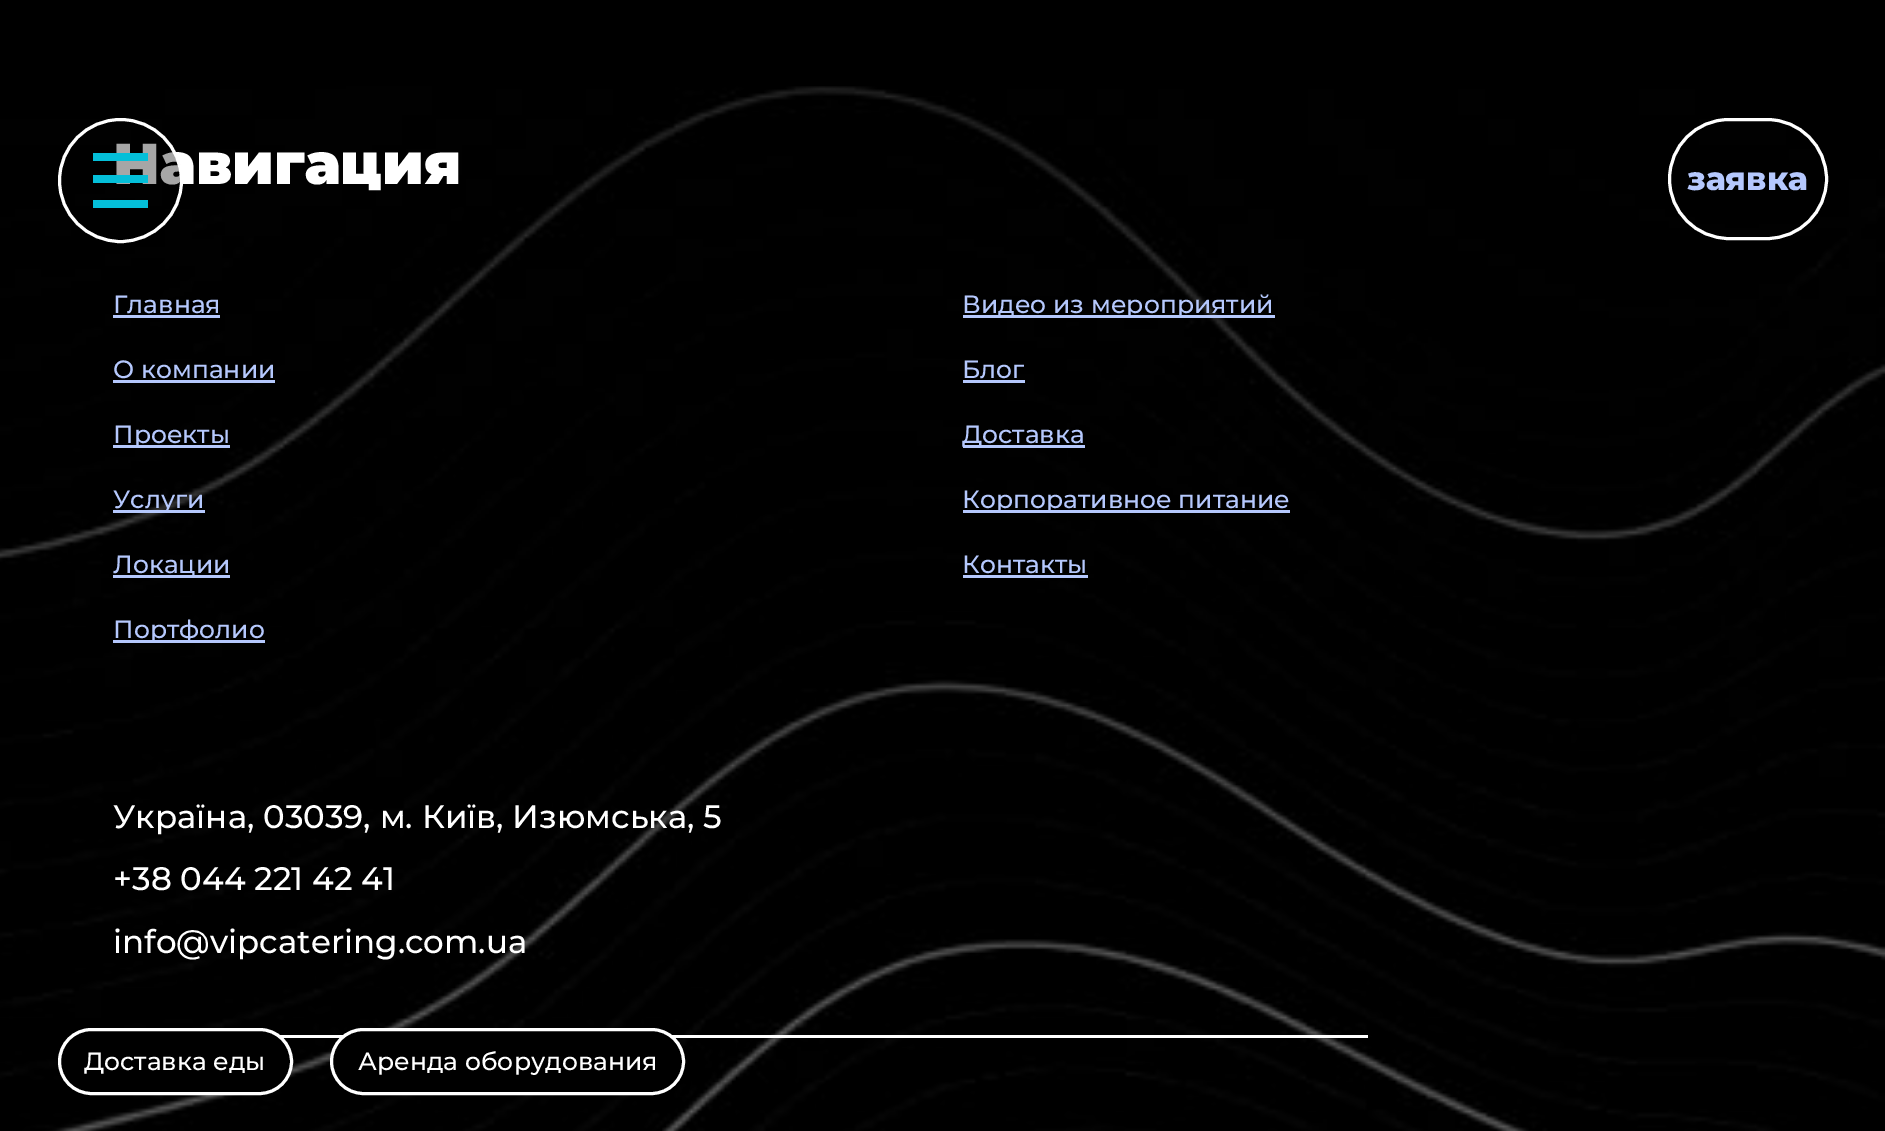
%!PS
<< /PageSize [1885 1131] /PageUsesTransparency true >> setpagedevice
/f/fill load def
/s/stroke load def
/q/gsave load def
/Q_/grestore load def
/w/setlinewidth load def
/C { dup -16 bitshift 255 div exch dup -8 bitshift 255 and 255 div exch 255 and 255 div setrgbcolor } def
/F { [ exch dup neg 0 0 3 -1 roll 0 0 ] selectfont } def
/T { moveto show } def
/R { rectfill } def
/A { dup .setfillconstantalpha .setstrokeconstantalpha } def
/O { newpath 0 360 arc closepath } def
/Q { 5 dict begin { /r /h /w /y /x } { exch def } forall
  x r add y moveto x w add y 2 copy h add r arct x w add y h add x 1 index r arct
  x y h add x y r arct x y 2 copy exch w add exch r arct closepath end } def
/I { 5 dict begin { /h /w /y /x /name } { exch def } forall
  gsave x y translate w h scale
  w h 8 [w 0 0 h 0 0] name (r) file false 3 colorimage grestore end } def
0 .pushpdf14devicefilter
0 1131 translate 1 -1 scale
4 setmiterlimit
16#000000 C
0 0 1885 1131 R
(1.rgb) 0 86 1885 1045 I
/Montserrat-Black 57.5 F
16#FFFFFF C
(Навигация) 113 184 T
/Montserrat-Medium 25 F
16#B5C8FD C
(Главная) 113 313 T
113 315 107 3 R
963 315 312 3 R
(Видео из мероприятий) 962 313 T
(О компании) 113 378 T
113 380 162 3 R
(Блог) 962 378 T
963 380 62 3 R
113 445 117 3 R
(Проекты) 113 443 T
963 445 122 3 R
(Доставка) 962 443 T
113 510 92 3 R
(Услуги) 113 508 T
963 510 327 3 R
(Корпоративное питание) 962 508 T
113 575 117 3 R
(Локации) 113 573 T
(Контакты) 962 573 T
963 575 125 3 R
113 640 152 3 R
(Портфолио) 113 638 T
/Montserrat-Medium 32.5 F
16#FFFFFF C
(Україна, 03039, м. Київ, Изюмська, 5) 113 828 T
(+38 044 221 42 41) 113 890 T
(info@vipcatering.com.ua) 113 953 T
280 1035 1088 3 R
16#000000 C
59.5 1029.5 232 64 32 Q q f Q_
16#FFFFFF C
3 w
s
/Montserrat-Medium 25 F
(Доставка еды) 84 1070 T
16#000000 C
331.5 1029.5 352 64 32 Q q f Q_
16#FFFFFF C
s
(Аренда оборудования) 358 1070 T
0.35 A
16#000000 C
120.5 180.5 61 O f
1 A
16#FFFFFF C
120.5 180.5 61 O s
16#04BFD9 C
93 153 55 8 R
93 175 55 8 R
93 200 55 8 R
16#FFFFFF C
1669.5 119.5 157 119 59.5 Q s
/Montserrat-ExtraBold 32.5 F
16#B5C8FD C
(заявка) 1687 190 T
.poppdf14devicefilter showpage
